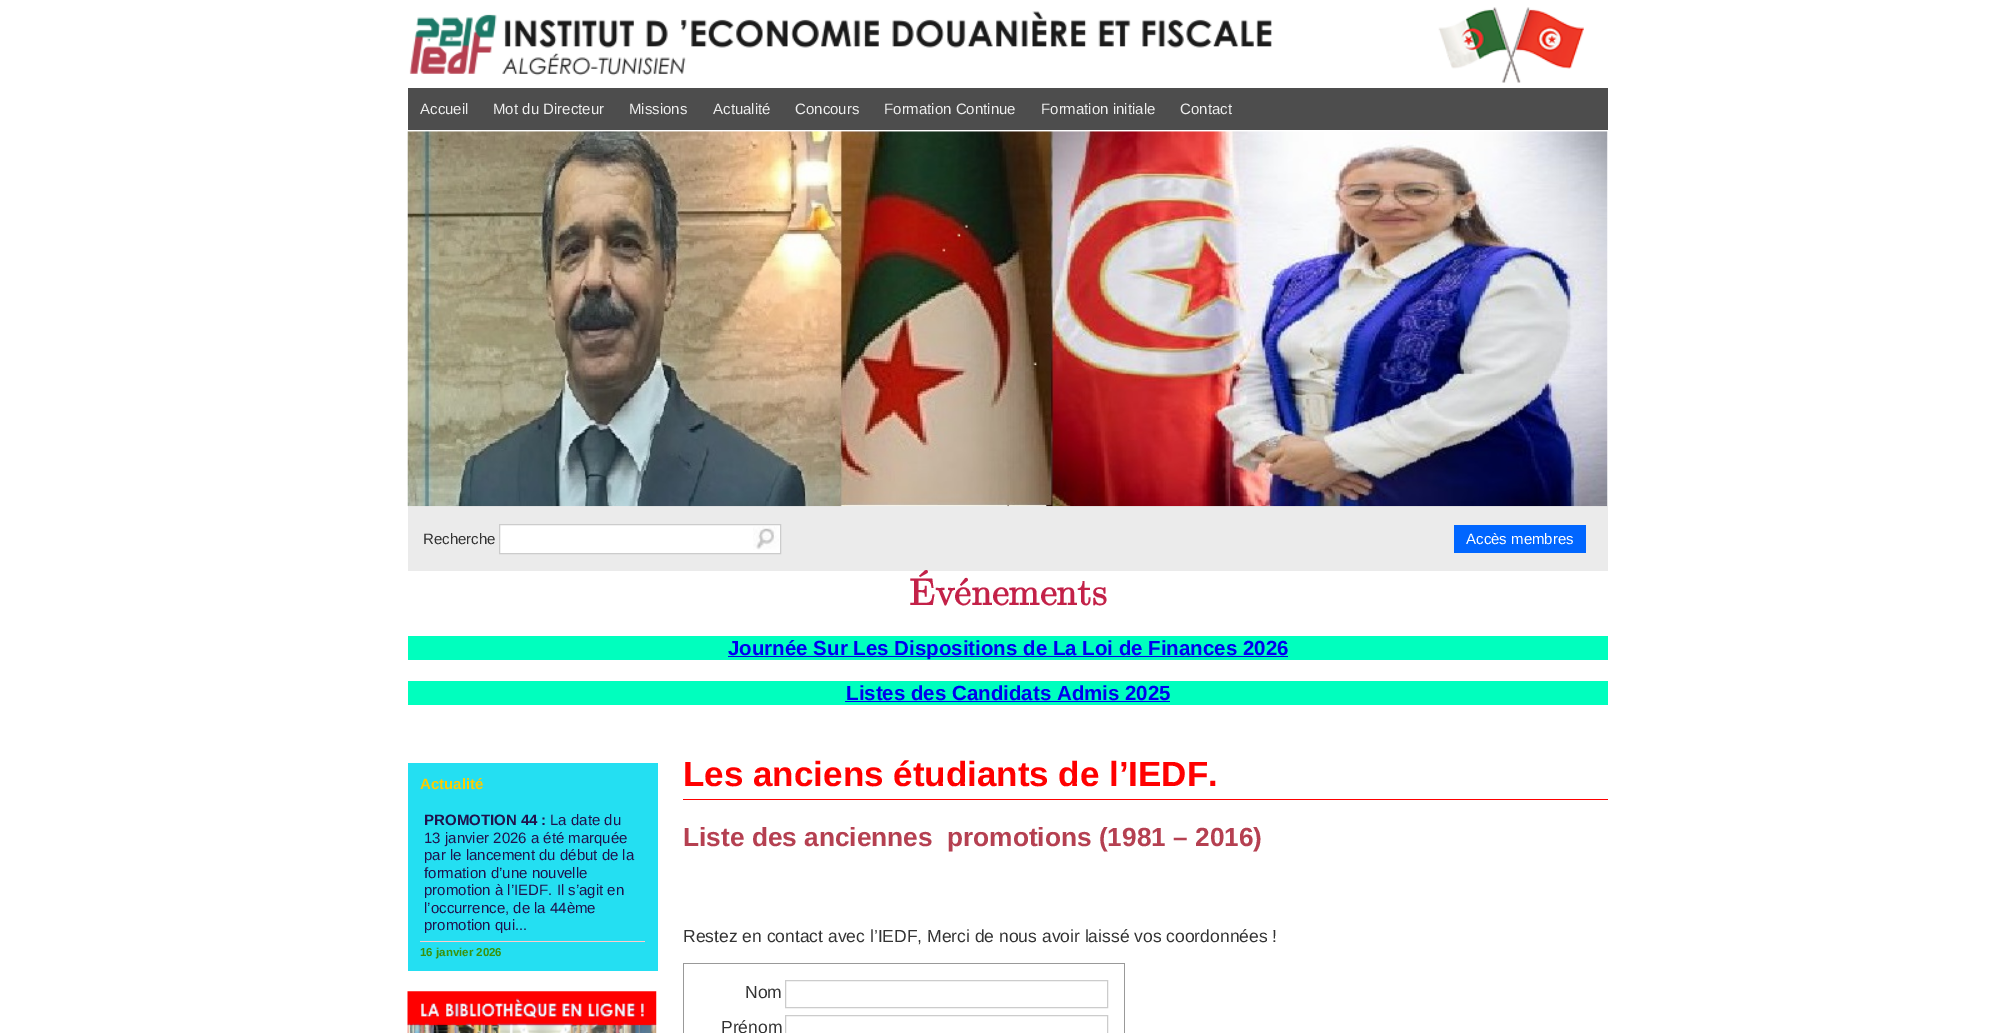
%!PS
<< /PageSize [2014 1033] >> setpagedevice
/C { dup -16 bitshift 255 div exch dup -8 bitshift 255 and 255 div exch 255 and 255 div setrgbcolor } def
/F { [ exch dup neg 0 0 3 -1 roll 0 0 ] selectfont } def
/T { moveto show } def
/R { rectfill } def
/I { 5 dict begin { /h /w /y /x /name } { exch def } forall
  gsave x y translate w h scale
  w h 8 [w 0 0 h 0 0] name (r) file false 3 colorimage grestore end } def
0 1033 translate 1 -1 scale
4 setmiterlimit
16#FFFFFF C
0 0 2014 1033 R
(1.rgb) 409 7 1175 76 I
16#4D4D4D C
408 88 1200 42 R
/LiberationSans-Regular 15 F
16#EEEEEE C
(Accueil) 420 114 T
(Mot du Directeur) 493 114 T
(Missions) 629 114 T
(Actualité) 713 114 T
(Concours) 795 114 T
(Formation Continue) 884 114 T
(Formation initiale) 1041 114 T
(Contact) 1180 114 T
16#EBEBEB C
408 506 1200 65 R
(2.rgb) 407 131 1201 376 I
16#333333 C
(Recherche) 423 544 T
16#FFFFFF C
500 525 280 28 R
(3.rgb) 753 526 26 24 I
16#CCCCCC C
499.5 524.5 281 29 rectstroke
16#0066FF C
1454 525 132 28 R
16#FFFFFF C
(Accès membres) 1466 544 T
/LatinModernMath-Bold 37.5 F
16#C32148 C
(Événements) 909 605 T
16#00FFBE C
408 636 1200 24 R
16#0000EE C
728 656 560 1 R
/LiberationSans-Bold 20.5 F
(Journée Sur Les Dispositions de La Loi de Finances 2026) 728 655 T
16#00FFBE C
408 681 1200 24 R
16#0000EE C
(Listes des Candidats Admis 2025) 846 700 T
845 701 325 1 R
16#24DFF2 C
408 763 250 208 R
/LiberationSans-Bold 15 F
16#FFCC00 C
(Actualité) 420 789 T
16#20124D C
(PROMOTION 44 :) 424 825 T
/LiberationSans-Regular 15 F
(La date du) 550 825 T
(13 janvier 2026 a été marquée) 424 843 T
(par le lancement du début de la) 424 860 T
(formation d’une nouvelle) 424 878 T
(promotion à l’IEDF. Il s’agit en) 424 895 T
(l’occurrence, de la 44ème) 424 913 T
(promotion qui...) 424 930 T
16#FFCCCC C
420 941 225 1 R
/LiberationSans-Bold 11.5 F
16#3A920D C
(16 janvier 2026) 420 956 T
(4.rgb) 407 991 250 42 I
/LiberationSans-Bold 35 F
16#FF0000 C
(Les anciens étudiants de l’IEDF.) 683 786 T
683 799 925 1 R
/LiberationSans-Bold 26.25 F
16#B54051 C
(Liste des anciennes  promotions \(1981 – 2016\)) 683 846 T
/LiberationSans-Regular 17.5 F
16#333333 C
(Restez en contact avec l’IEDF, Merci de nous avoir laissé vos coordonnées !) 683 942 T
16#999999 C
683 963 442 1 R
1124 963 1 70 R
683 963 1 70 R
16#333333 C
(Nom) 745 998 T
16#CCCCCC C
785.5 980.5 322 27 rectstroke
16#333333 C
(Prénom) 721 1033 T
16#CCCCCC C
785.5 1015.5 322 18 rectstroke
showpage
